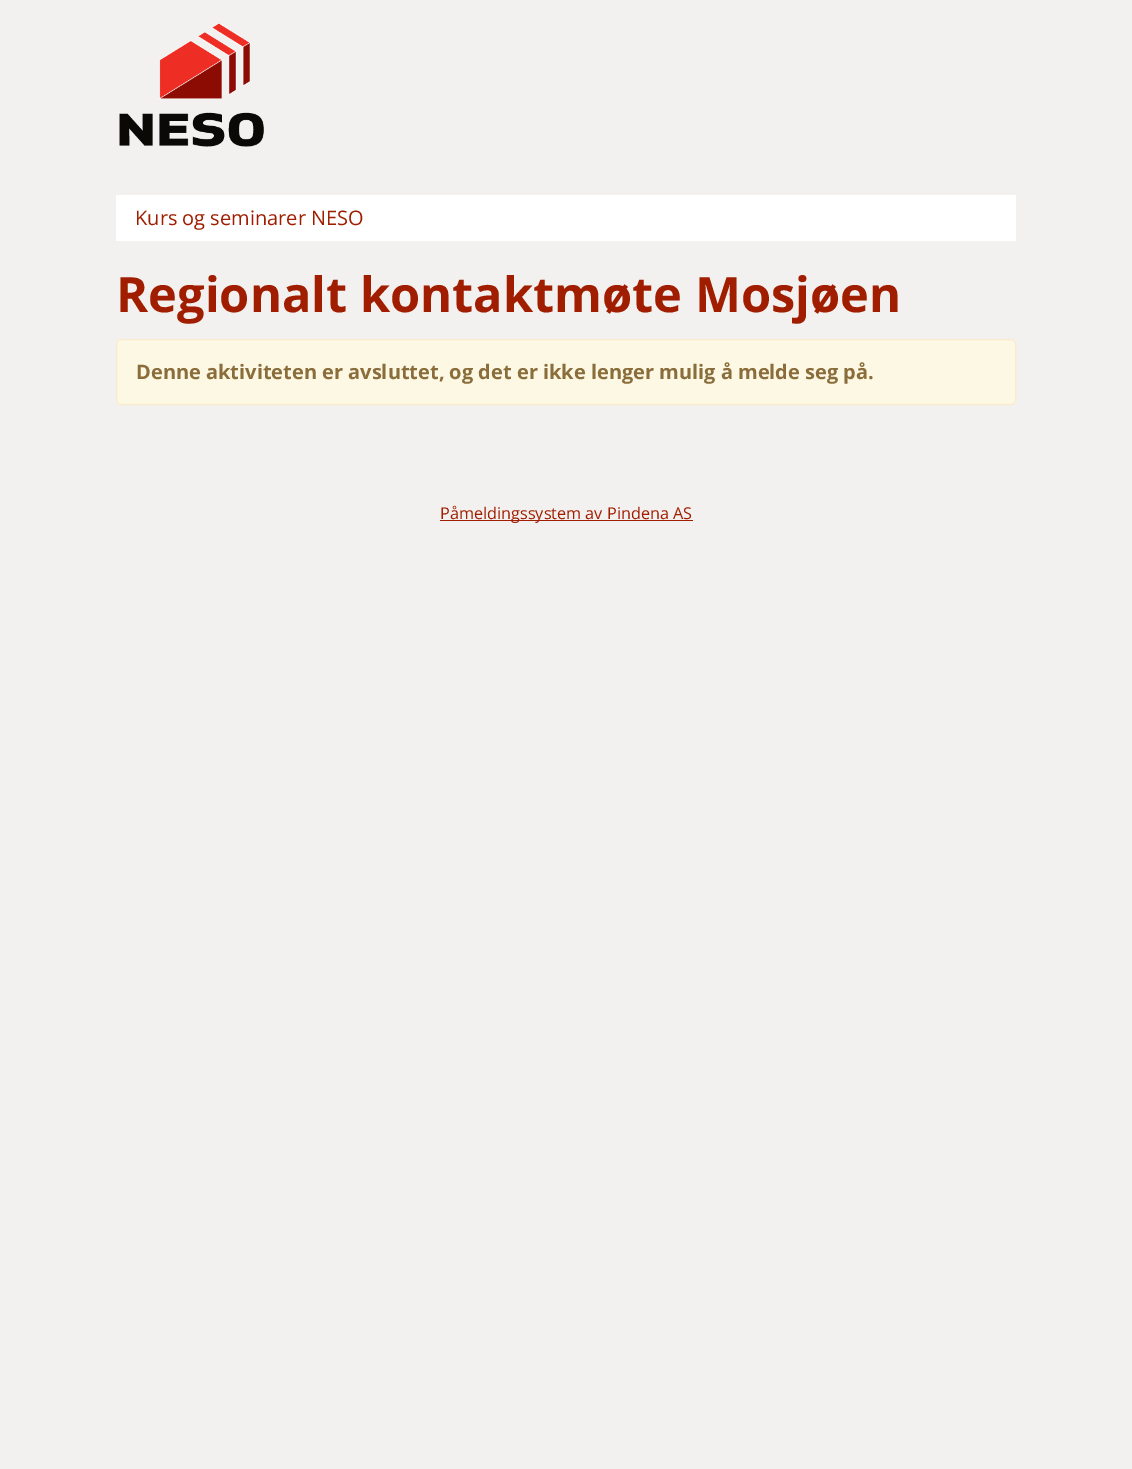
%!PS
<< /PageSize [1132 1469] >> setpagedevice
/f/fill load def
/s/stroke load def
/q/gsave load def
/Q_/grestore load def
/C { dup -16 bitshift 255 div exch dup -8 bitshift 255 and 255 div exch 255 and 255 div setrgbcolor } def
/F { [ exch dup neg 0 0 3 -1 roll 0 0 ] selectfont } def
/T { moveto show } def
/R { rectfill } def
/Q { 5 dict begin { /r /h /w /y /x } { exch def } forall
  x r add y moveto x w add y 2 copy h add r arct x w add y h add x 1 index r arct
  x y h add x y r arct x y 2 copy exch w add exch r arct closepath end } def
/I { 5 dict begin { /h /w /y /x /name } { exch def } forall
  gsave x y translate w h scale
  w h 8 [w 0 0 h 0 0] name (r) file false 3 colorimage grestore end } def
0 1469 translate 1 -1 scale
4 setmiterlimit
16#F3F1EF C
0 0 1132 1469 R
(1.rgb) 119 23 145 124 I
16#FFFFFF C
116 195 900 46 R
/OpenSans-Regular 20 F
16#A01D00 C
(Kurs og seminarer NESO) 135 225 T
/OpenSans-Bold 48.75 F
(Regionalt kontaktmøte Mosjøen) 116 312 T
16#FCF8E3 C
116.5 339.5 899 65 4.5 Q q f Q_
16#FAEBCC C
s
/OpenSans-Bold 20 F
16#8A6D3B C
(Denne aktiviteten er avsluttet, og det er ikke lenger mulig å melde seg på.) 136 379 T
16#A01D00 C
440 520 253 1 R
/OpenSans-Regular 16.25 F
(Påmeldingssystem av Pindena AS) 440 519 T
showpage
